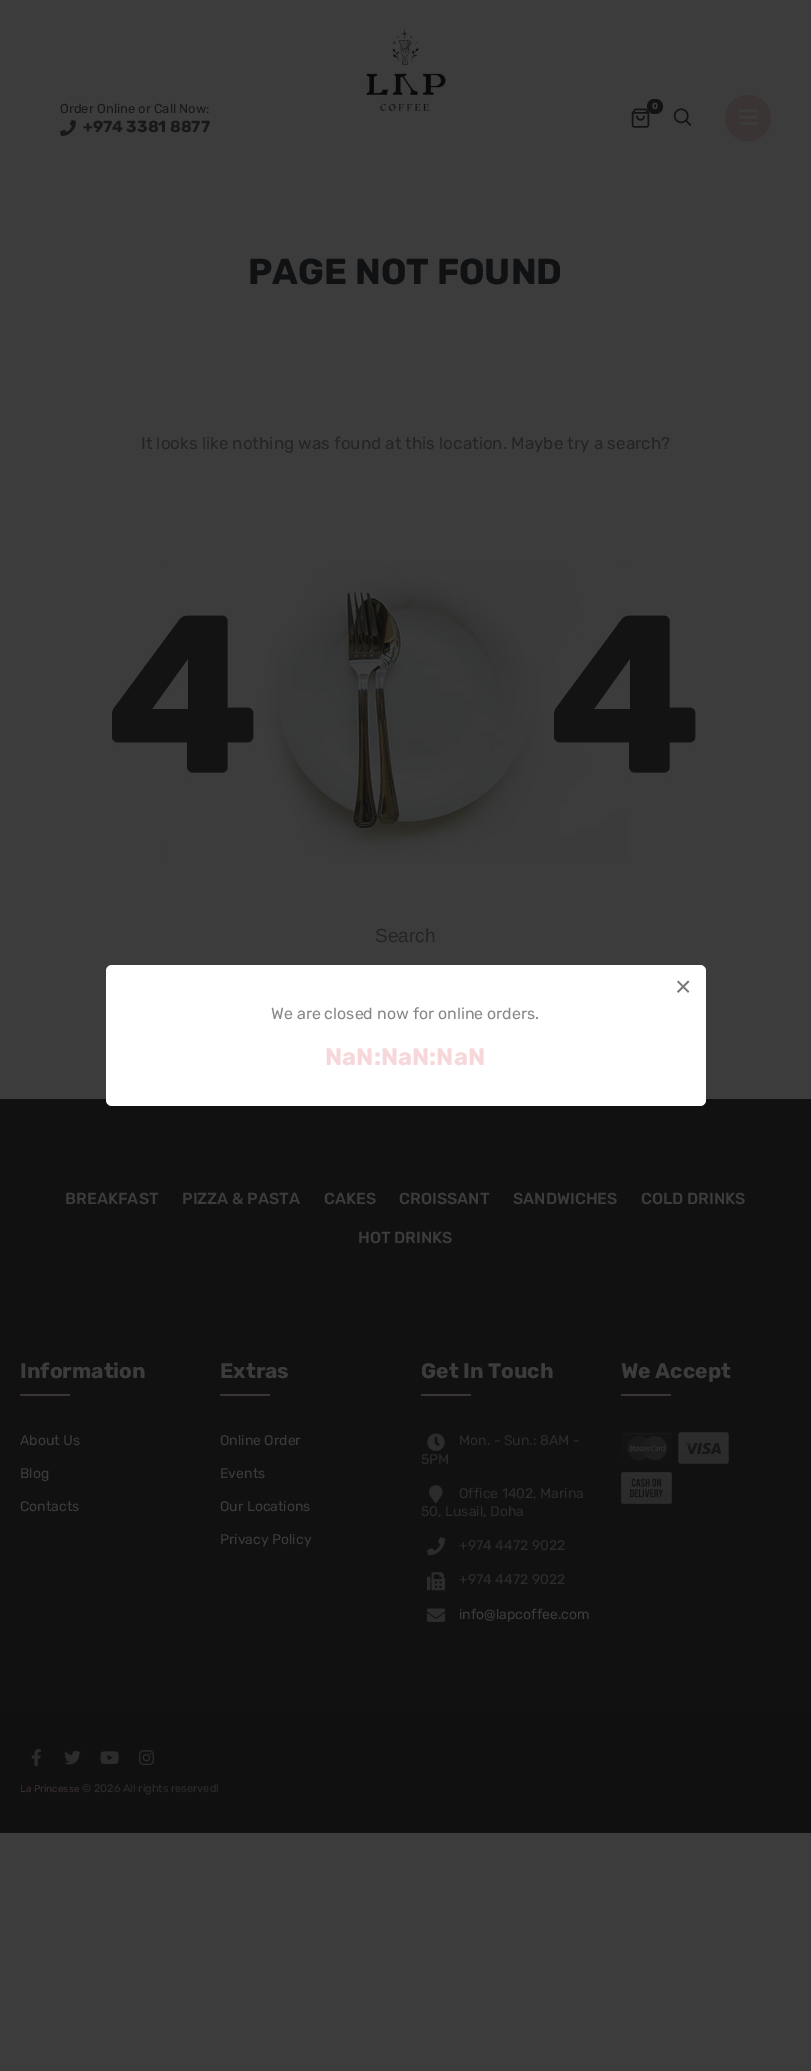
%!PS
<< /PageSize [811 2071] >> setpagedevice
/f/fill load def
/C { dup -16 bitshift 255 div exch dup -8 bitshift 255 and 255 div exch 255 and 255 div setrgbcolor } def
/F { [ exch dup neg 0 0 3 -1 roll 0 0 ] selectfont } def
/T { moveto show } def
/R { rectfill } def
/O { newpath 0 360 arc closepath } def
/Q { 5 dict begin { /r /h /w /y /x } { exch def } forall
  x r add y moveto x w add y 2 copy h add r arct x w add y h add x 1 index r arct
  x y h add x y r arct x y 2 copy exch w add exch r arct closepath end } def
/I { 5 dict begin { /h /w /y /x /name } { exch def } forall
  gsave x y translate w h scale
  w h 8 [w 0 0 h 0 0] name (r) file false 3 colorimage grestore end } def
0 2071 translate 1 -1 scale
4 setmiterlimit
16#3C3C3C C
0 0 811 2071 R
(1.rgb) 366 29 80 82 I
/Rubik-Regular 13 F
16#181818 C
(Order Online or Call Now:) 60 113 T
(2.rgb) 60 120 16 16 I
/Rubik-Bold 16 F
(+974 3381 8877) 83 132 T
(3.rgb) 631 108 19 20 I
16#131313 C
647 99 16 15 7.5 Q f
/Rubik-Bold 9 F
16#3C3C3C C
(0) 652 109 T
(4.rgb) 673 108 19 18 I
16#3A3434 C
748 118 23 O f
(5.rgb) 739 109 19 17 I
/Rubik-Bold 36 F
16#101112 C
(PAGE NOT FOUND) 248 284 T
/Rubik-Regular 17 F
16#242424 C
(It looks like nothing was found at this location. Maybe try a search?) 141 449 T
(6.rgb) 112 561 584 302 I
/LiberationSans-Regular 19 F
(Search) 375 942 T
16#111111 C
0 1099 811 613 R
/Rubik-Medium 16 F
16#3C3C3C C
(BREAKFAST) 65 1204 T
(PIZZA & PASTA) 182 1204 T
(CAKES) 324 1204 T
(CROISSANT) 399 1204 T
(SANDWICHES) 513 1204 T
(COLD DRINKS) 641 1204 T
(HOT DRINKS) 358 1243 T
/Rubik-Bold 21 F
(Information) 20 1378 T
16#3A3434 C
20 1394 50 2 R
/Rubik-Regular 14 F
16#3C3C3C C
(About Us) 20 1445 T
(Blog) 20 1478 T
(Contacts) 20 1511 T
/Rubik-Bold 21 F
(Extras) 220 1378 T
16#3A3434 C
220 1394 50 2 R
/Rubik-Regular 14 F
16#3C3C3C C
(Online Order) 220 1445 T
(Events) 220 1478 T
(Our Locations) 220 1511 T
(Privacy Policy) 220 1544 T
/Rubik-Bold 21 F
(Get In Touch) 421 1378 T
16#3A3434 C
421 1394 50 2 R
(7.rgb) 427 1433 18 18 I
/Rubik-Regular 14 F
16#2C2C2C C
(Mon. - Sun.: 8AM -) 459 1445 T
(5PM) 421 1464 T
(8.rgb) 429 1485 14 19 I
(Office 1402, Marina) 459 1498 T
(50, Lusail, Doha) 421 1516 T
(9.rgb) 427 1537 18 19 I
(+974 4472 9022) 459 1550 T
(10.rgb) 427 1572 18 19 I
(+974 4472 9022) 459 1584 T
(11.rgb) 427 1608 18 14 I
16#3C3C3C C
(info@lapcoffee.com) 459 1619 T
/Rubik-Bold 21 F
(We Accept) 621 1378 T
16#3A3434 C
621 1394 50 2 R
(12.rgb) 622 1432 50 32 I
(13.rgb) 678 1432 51 32 I
(14.rgb) 621 1472 51 32 I
16#101010 C
0 1712 811 121 R
(15.rgb) 31 1749 10 18 I
(16.rgb) 64 1750 17 15 I
(17.rgb) 100 1751 19 13 I
(18.rgb) 139 1750 15 16 I
/Rubik-Regular 10 F
16#3A2F34 C
(La Princesse) 20 1792 T
/Rubik-Regular 11 F
16#2C2C2C C
(© 2026 All rights reserved!) 82 1792 T
16#FFFFFF C
106 965 600 141 6 Q f
/LiberationSans-Regular 28 F
16#7A7A7A C
(×) 675 996 T
/Rubik-Regular 16 F
16#888888 C
(We are closed now for online orders.) 271 1019 T
/Rubik-Bold 24 F
16#F7D7D9 C
(NaN:NaN:NaN) 325 1065 T
showpage
